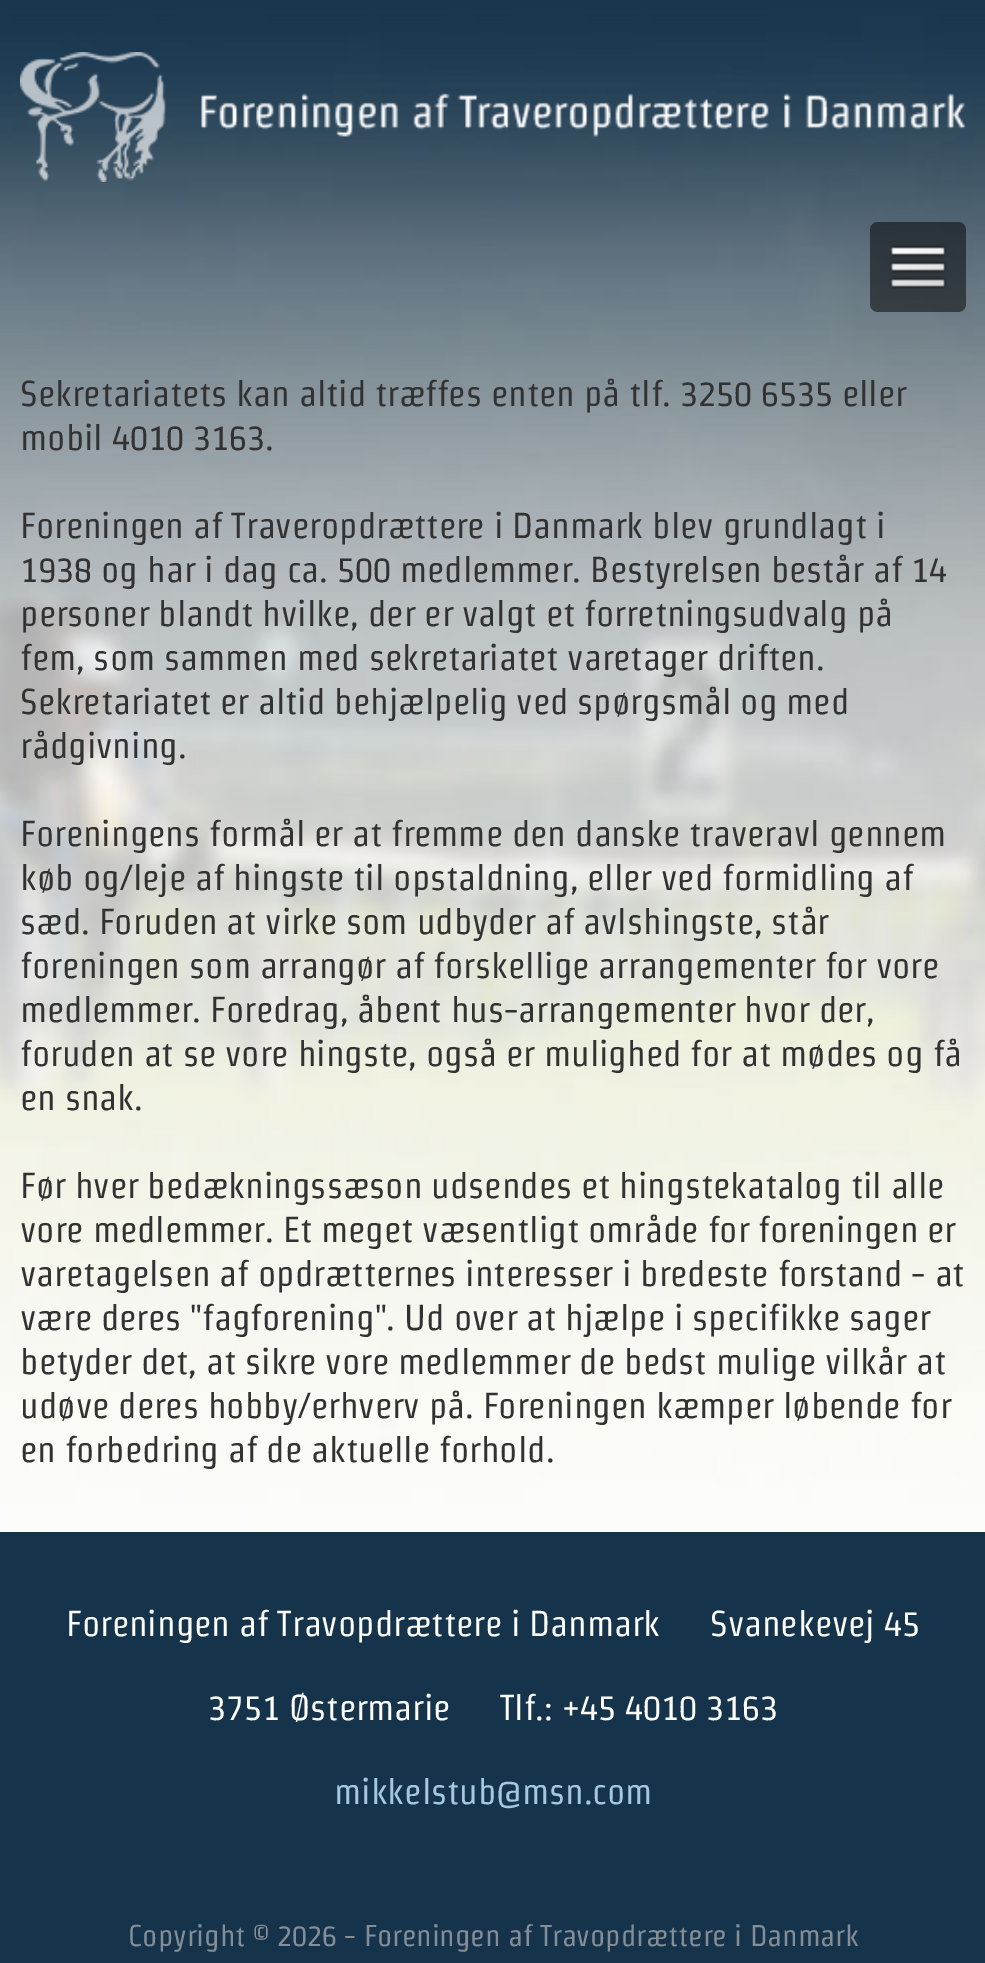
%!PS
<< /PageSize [985 1963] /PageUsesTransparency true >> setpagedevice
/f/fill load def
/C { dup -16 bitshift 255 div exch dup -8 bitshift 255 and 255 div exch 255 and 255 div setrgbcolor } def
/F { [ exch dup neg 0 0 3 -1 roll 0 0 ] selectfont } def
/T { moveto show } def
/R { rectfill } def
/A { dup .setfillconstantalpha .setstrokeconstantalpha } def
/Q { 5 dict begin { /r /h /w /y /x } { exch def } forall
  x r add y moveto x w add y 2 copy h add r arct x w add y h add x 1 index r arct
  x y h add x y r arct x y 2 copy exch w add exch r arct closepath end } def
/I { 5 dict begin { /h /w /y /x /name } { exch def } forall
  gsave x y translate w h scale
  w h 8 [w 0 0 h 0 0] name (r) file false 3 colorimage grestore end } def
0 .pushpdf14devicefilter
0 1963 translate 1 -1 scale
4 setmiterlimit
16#15334A C
0 0 985 1963 R
(1.rgb) 0 0 985 1532 I
(2.rgb) 20 52 946 130 I
0.5 A
16#000000 C
870 222 96 90 8 Q f
1 A
(3.rgb) 889 245 58 44 I
/Strait-Regular 36 F
16#323232 C
(Sekretariatets kan altid træffes enten på tlf. 3250 6535 eller) 20 406 T
(mobil 4010 3163.) 20 450 T
(Foreningen af Traveropdrættere i Danmark blev grundlagt i) 20 538 T
(1938 og har i dag ca. 500 medlemmer. Bestyrelsen består af 14) 20 582 T
(personer blandt hvilke, der er valgt et forretningsudvalg på) 20 626 T
(fem, som sammen med sekretariatet varetager driften.) 20 670 T
(Sekretariatet er altid behjælpelig ved spørgsmål og med) 20 714 T
(rådgivning.) 20 758 T
(Foreningens formål er at fremme den danske traveravl gennem) 20 846 T
(køb og/leje af hingste til opstaldning, eller ved formidling af) 20 890 T
(sæd. Foruden at virke som udbyder af avlshingste, står) 20 934 T
(foreningen som arrangør af forskellige arrangementer for vore) 20 978 T
(medlemmer. Foredrag, åbent hus-arrangementer hvor der,) 20 1022 T
(foruden at se vore hingste, også er mulighed for at mødes og få) 20 1066 T
(en snak.) 20 1110 T
(Før hver bedækningssæson udsendes et hingstekatalog til alle) 20 1198 T
(vore medlemmer. Et meget væsentligt område for foreningen er) 20 1242 T
(varetagelsen af opdrætternes interesser i bredeste forstand - at) 20 1286 T
(være deres "fagforening". Ud over at hjælpe i specifikke sager) 20 1330 T
(betyder det, at sikre vore medlemmer de bedst mulige vilkår at) 20 1374 T
(udøve deres hobby/erhverv på. Foreningen kæmper løbende for) 20 1418 T
(en forbedring af de aktuelle forhold.) 20 1462 T
16#FDFDFA C
(Foreningen af Travopdrættere i Danmark) 66 1636 T
(Svanekevej 45) 710 1636 T
(3751 Østermarie) 208 1720 T
(Tlf.: +45 4010 3163) 500 1720 T
16#A2C8E3 C
(mikkelstub@msn.com) 334 1804 T
/Strait-Regular 30 F
16#858E96 C
(Copyright © 2026 - Foreningen af Travopdrættere i Danmark) 128 1946 T
.poppdf14devicefilter showpage
